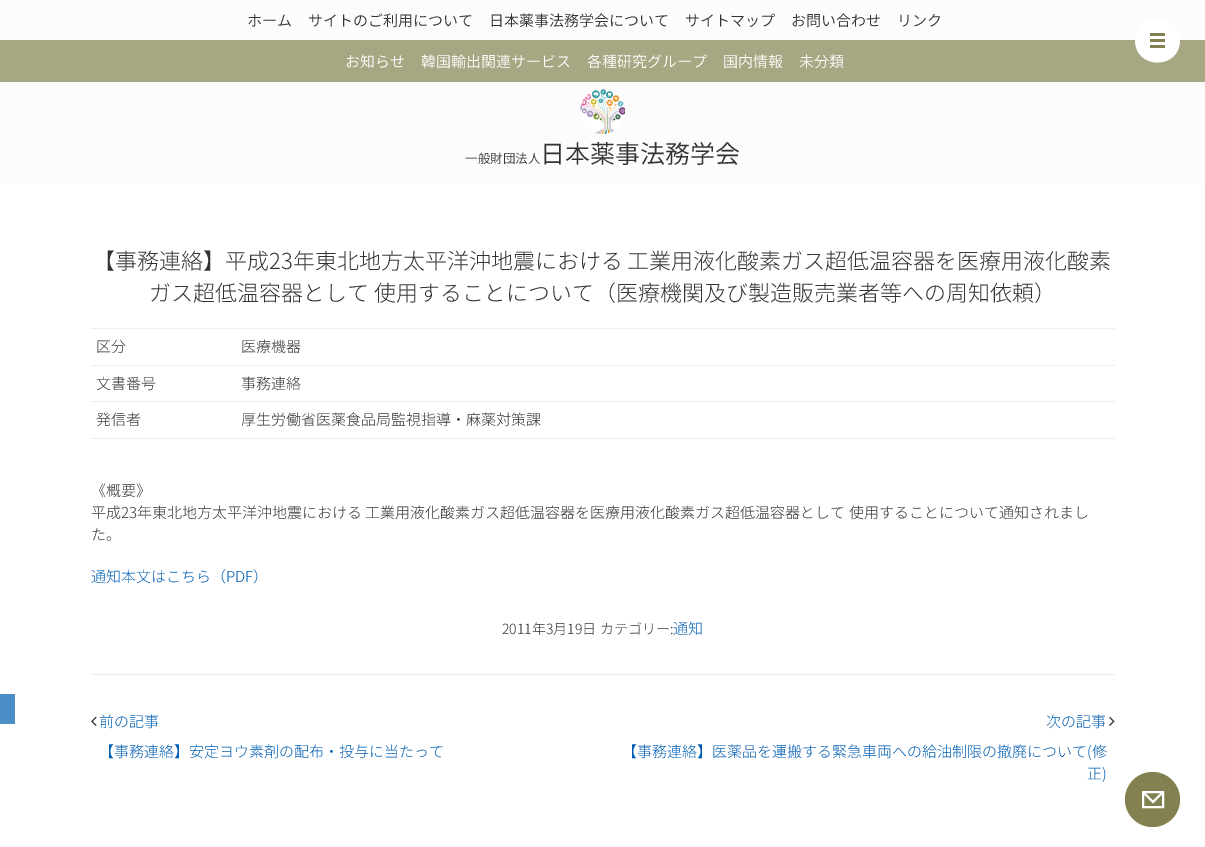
%!PS
<< /PageSize [1205 847] >> setpagedevice
/m/moveto load def
/l/rlineto load def
/c/rcurveto load def
/z/closepath load def
/f/fill load def
/s/stroke load def
/w/setlinewidth load def
/C { dup -16 bitshift 255 div exch dup -8 bitshift 255 and 255 div exch 255 and 255 div setrgbcolor } def
/F { [ exch dup neg 0 0 3 -1 roll 0 0 ] selectfont } def
/T { moveto show } def
/R { rectfill } def
/O { newpath 0 360 arc closepath } def
/I { 5 dict begin { /h /w /y /x /name } { exch def } forall
  gsave x y translate w h scale
  w h 8 [w 0 0 h 0 0] name (r) file false 3 colorimage grestore end } def
0 847 translate 1 -1 scale
4 setmiterlimit
16#FFFFFF C
0 0 1205 847 R
16#4D8EC9 C
0 694 15 30 R
16#FCFCFC C
0 0 1205 184 R
(1.rgb) 580 89 45 45 I
/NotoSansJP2-Light 15 F
16#333333 C
(ホーム) 247 26 T
(サイトのご利用について) 308 26 T
(日本薬事法務学会について) 489 26 T
(サイトマップ) 685 26 T
(お問い合わせ) 791 26 T
(リンク) 897 26 T
16#A7A784 C
0 40 1205 42 R
16#FFFFFF C
(お知らせ) 345 67 T
(韓国輸出関連サービス) 421 67 T
(各種研究グループ) 587 67 T
(国内情報) 723 67 T
(未分類) 799 67 T
/NotoSansJP2-Light 12.5 F
16#333333 C
(一般財団法人) 465 163 T
/NotoSansJP2-Light 25 F
(日本薬事法務学会) 540 163 T
16#ECECEC C
91 674 1024 1 R
/NotoSansJP-Light 22 F
16#333333 C
(【事務連絡】平成23年東北地方太平洋沖地震における 工業用液化酸素ガス超低温容器を医療用液化酸素) 93 269 T
(ガス超低温容器として 使用することについて（医療機関及び製造販売業者等への周知依頼）) 149 301 T
16#EEEEEE C
91 438 1024 1 R
/NotoSansJP-Light 15 F
16#333333 C
(区分) 96 352 T
16#EEEEEE C
91 328 1024 1 R
16#333333 C
(医療機器) 241 352 T
(文書番号) 96 389 T
16#EEEEEE C
91 365 1024 1 R
16#333333 C
(事務連絡) 241 389 T
(発信者) 96 425 T
16#EEEEEE C
91 401 1024 1 R
16#333333 C
(厚生労働省医薬食品局監視指導・麻薬対策課) 241 425 T
(《概要》) 91 496 T
(平成23年東北地方太平洋沖地震における 工業用液化酸素ガス超低温容器を医療用液化酸素ガス超低温容器として 使用することについて通知されまし) 91 518 T
(た。) 91 540 T
16#005DB2 C
(通知本文はこちら（PDF）) 91 582 T
/NotoSansJP-Light 14 F
16#333333 C
(2011年3月19日 カテゴリー:) 502 634 T
/NotoSansJP-Light 15 F
16#005DB2 C
(通知) 673 634 T
(2.rgb) 91 716 6 10 I
(前の記事) 99 727 T
(次の記事) 1046 727 T
(3.rgb) 1109 716 6 10 I
(【事務連絡】安定ヨウ素剤の配布・投与に当たって) 99 757 T
(【事務連絡】医薬品を運搬する緊急車両への給油制限の撤廃について\(修) 622 757 T
(正\)) 1087 779 T
16#FFFFFF C
1135 40 m 0 -29 45 -29 45 0 c 0 30 -45 30 -45 0 c z eofill
16#838151 C
1150 33 15 3 R
1150 39 15 3 R
1150 45 15 3 R
1152.5 799.5 27.5 O f
16#FFFFFF C
2 w
2 setlinecap
1144 793 m 9 9 l 9 -9 l s
0 setlinecap
1143 792 20 15 rectstroke
showpage
